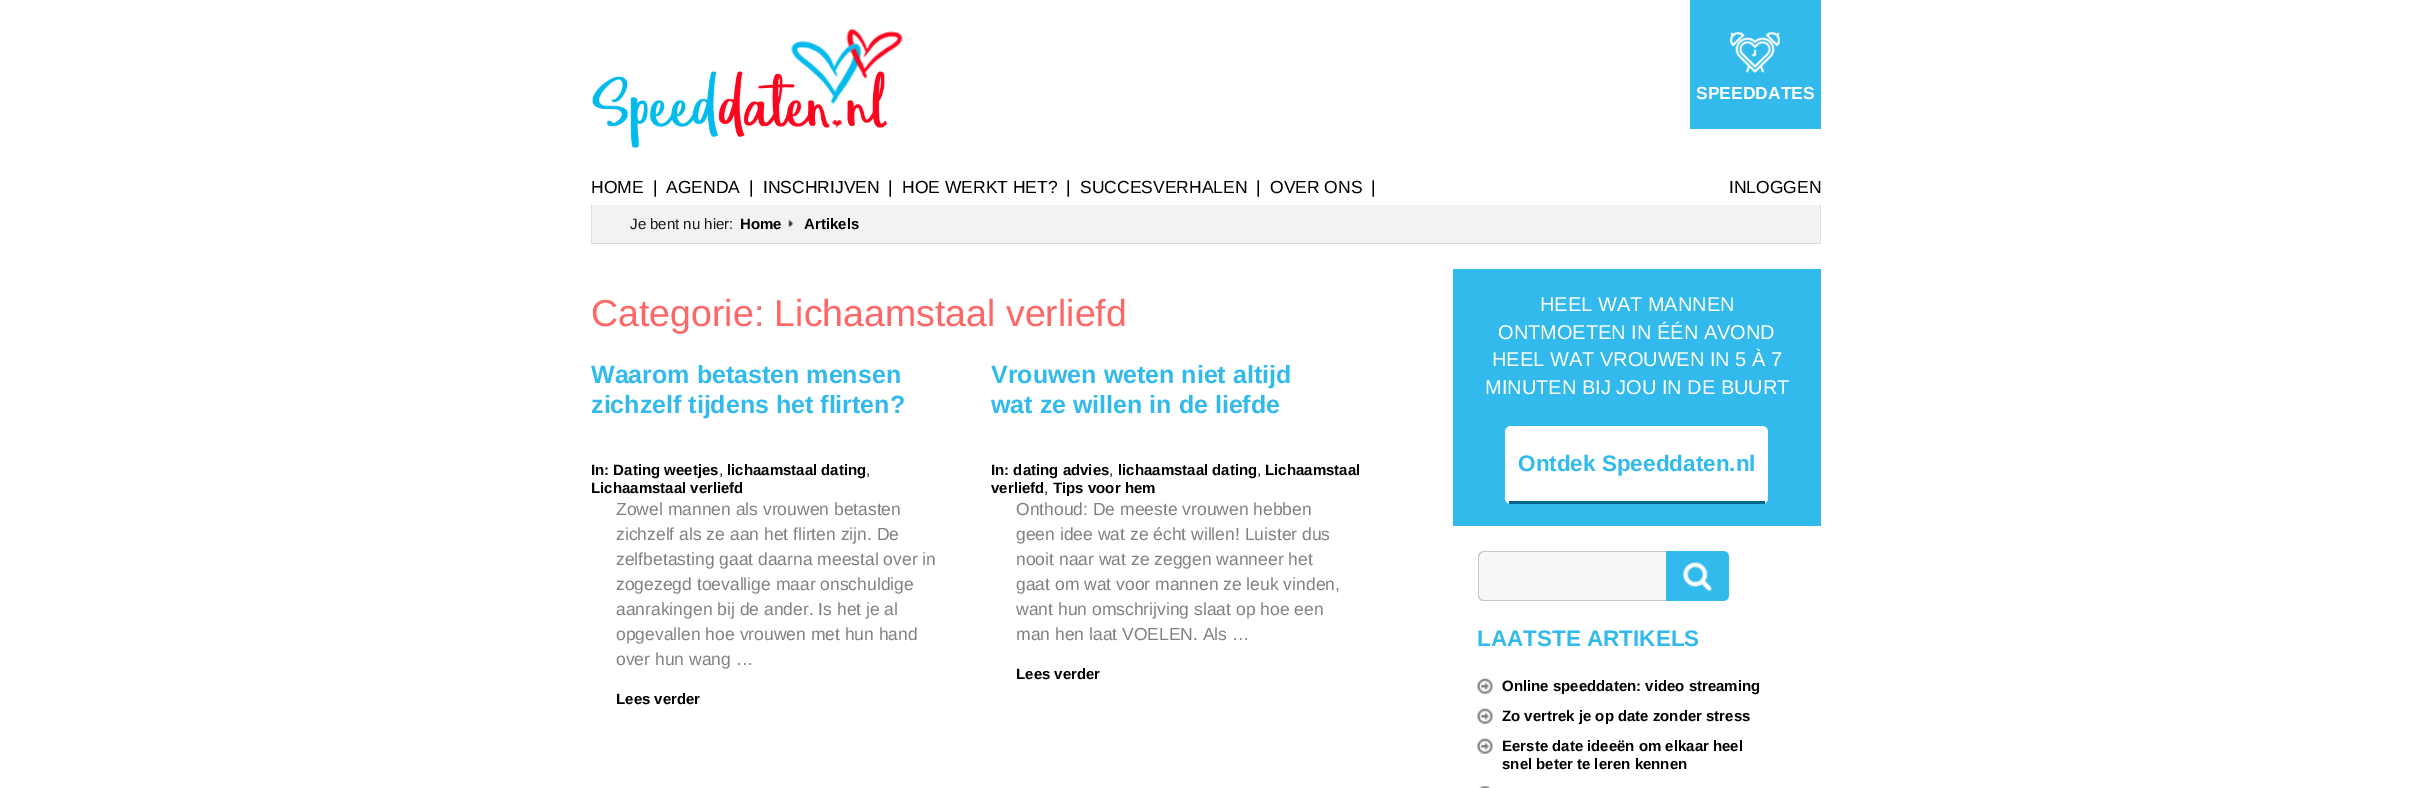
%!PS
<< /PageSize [2412 788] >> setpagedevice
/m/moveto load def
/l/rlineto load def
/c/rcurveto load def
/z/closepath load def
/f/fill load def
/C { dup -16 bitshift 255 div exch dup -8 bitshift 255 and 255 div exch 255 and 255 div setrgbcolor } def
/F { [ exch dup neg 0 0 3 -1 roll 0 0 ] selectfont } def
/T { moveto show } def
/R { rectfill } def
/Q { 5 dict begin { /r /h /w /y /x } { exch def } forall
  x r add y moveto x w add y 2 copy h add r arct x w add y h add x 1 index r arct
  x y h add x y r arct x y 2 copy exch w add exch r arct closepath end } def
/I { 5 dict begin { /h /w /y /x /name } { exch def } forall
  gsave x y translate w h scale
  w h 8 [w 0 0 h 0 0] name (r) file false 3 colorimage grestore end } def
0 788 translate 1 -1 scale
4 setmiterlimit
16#FFFFFF C
0 0 2412 788 R
(1.rgb) 591 28 313 122 I
16#32BAEC C
1690 0 131 129 R
(2.rgb) 1730 32 50 41 I
/LiberationSans-Bold 17.5 F
16#FFFFFF C
(SPEEDDATES) 1696 99 T
/LiberationSans-Regular 17.5 F
16#000000 C
(HOME) 591 193 T
(|) 653 193 T
(AGENDA) 666 193 T
(|) 749 193 T
(INSCHRIJVEN) 763 193 T
(|) 888 193 T
(HOE WERKT HET?) 902 193 T
(|) 1066 193 T
(SUCCESVERHALEN) 1080 193 T
(|) 1256 193 T
(OVER ONS) 1270 193 T
(|) 1371 193 T
(INLOGGEN) 1729 193 T
16#F2F2F2 C
592 205 1228 38 R
16#DBDBDB C
1820 205 1 39 R
591 243 1230 1 R
591 205 1 39 R
/LiberationSans-Regular 15 F
16#171C1C C
(Je bent nu hier:) 630 229 T
(3.rgb) 788 220 6 8 I
/LiberationSans-Bold 15 F
16#000000 C
(Home) 740 229 T
(Artikels) 804 229 T
/LiberationSans-Regular 37.5 F
16#FF6666 C
(Categorie: Lichaamstaal verliefd) 591 326 T
/LiberationSans-Bold 25 F
16#32BAEC C
(Waarom betasten mensen) 591 383 T
(zichzelf tijdens het flirten?) 591 413 T
/LiberationSans-Bold 15 F
16#000000 C
(In: Dating weetjes) 591 475 T
/LiberationSans-Regular 15 F
(,) 719 475 T
/LiberationSans-Bold 15 F
(lichaamstaal dating) 727 475 T
/LiberationSans-Regular 15 F
(,) 866 475 T
/LiberationSans-Bold 15 F
(Lichaamstaal verliefd) 591 493 T
/LiberationSans-Regular 17.5 F
16#808080 C
(Zowel mannen als vrouwen betasten) 616 515 T
(zichzelf als ze aan het flirten zijn. De) 616 540 T
(zelfbetasting gaat daarna meestal over in) 616 565 T
(zogezegd toevallige maar onschuldige) 616 590 T
(aanrakingen bij de ander. Is het je al) 616 615 T
(opgevallen hoe vrouwen met hun hand) 616 640 T
(over hun wang …) 616 665 T
/LiberationSans-Bold 15 F
16#000000 C
(Lees verder) 616 704 T
/LiberationSans-Bold 25 F
16#32BAEC C
(Vrouwen weten niet altijd) 991 383 T
(wat ze willen in de liefde) 991 413 T
/LiberationSans-Bold 15 F
16#000000 C
(In: dating advies) 991 475 T
/LiberationSans-Regular 15 F
(,) 1109 475 T
/LiberationSans-Bold 15 F
(lichaamstaal dating) 1118 475 T
/LiberationSans-Regular 15 F
(,) 1257 475 T
/LiberationSans-Bold 15 F
(Lichaamstaal) 1265 475 T
(verliefd) 991 493 T
/LiberationSans-Regular 15 F
(,) 1044 493 T
/LiberationSans-Bold 15 F
(Tips voor hem) 1053 493 T
/LiberationSans-Regular 17.5 F
16#808080 C
(Onthoud: De meeste vrouwen hebben) 1016 515 T
(geen idee wat ze écht willen! Luister dus) 1016 540 T
(nooit naar wat ze zeggen wanneer het) 1016 565 T
(gaat om wat voor mannen ze leuk vinden,) 1016 590 T
(want hun omschrijving slaat op hoe een) 1016 615 T
(man hen laat VOELEN. Als …) 1016 640 T
/LiberationSans-Bold 15 F
16#000000 C
(Lees verder) 1016 679 T
16#32BAEC C
1453 269 368 257 R
/LiberationSans-Regular 20 F
16#FFFFFF C
(HEEL WAT MANNEN) 1540 311 T
(ONTMOETEN IN ÉÉN AVOND) 1498 339 T
(HEEL WAT VROUWEN IN 5 À 7) 1492 366 T
(MINUTEN BIJ JOU IN DE BUURT) 1485 394 T
1505 426 263 78 6 Q f
16#00668B C
1509 501 256 3 R
/LiberationSans-Bold 22.5 F
16#32BAEC C
(Ontdek Speeddaten.nl) 1518 471 T
16#F8F8F8 C
1484 551 m 182 0 l 0 50 l -182 0 l -3.5 0 -6 -2.5 -6 -6 c 0 -38 l 0 -3.5 2.5 -6 6 -6 c z f
16#C7C7C7 C
1484 551 m 182 0 l 0 50 l -182 0 l -4 0 -6 -3 -6 -6 c 0 -37 l 0 -4 2 -7 6 -7 c z 1484 552 m 182 0 l 0 48 l -182 0 l -3 0 -5 -2 -5 -5 c 0 -37 l 0 -3 2 -6 5 -6 c z eofill
16#32BAEC C
1666 551 m 57 0 l 3.5 0 6 2.5 6 6 c 0 38 l 0 3.5 -2.5 6 -6 6 c -57 0 l z f
(4.rgb) 1682 562 30 30 I
(LAATSTE ARTIKELS) 1477 646 T
(5.rgb) 1477 678 16 16 I
/LiberationSans-Bold 15 F
16#000000 C
(Online speeddaten: video streaming) 1502 691 T
(5.rgb) 1477 708 16 16 I
(Zo vertrek je op date zonder stress) 1502 721 T
(5.rgb) 1477 738 16 16 I
(Eerste date ideeën om elkaar heel) 1502 751 T
(snel beter te leren kennen) 1502 769 T
(6.rgb) 1479 786 12 2 I
showpage
